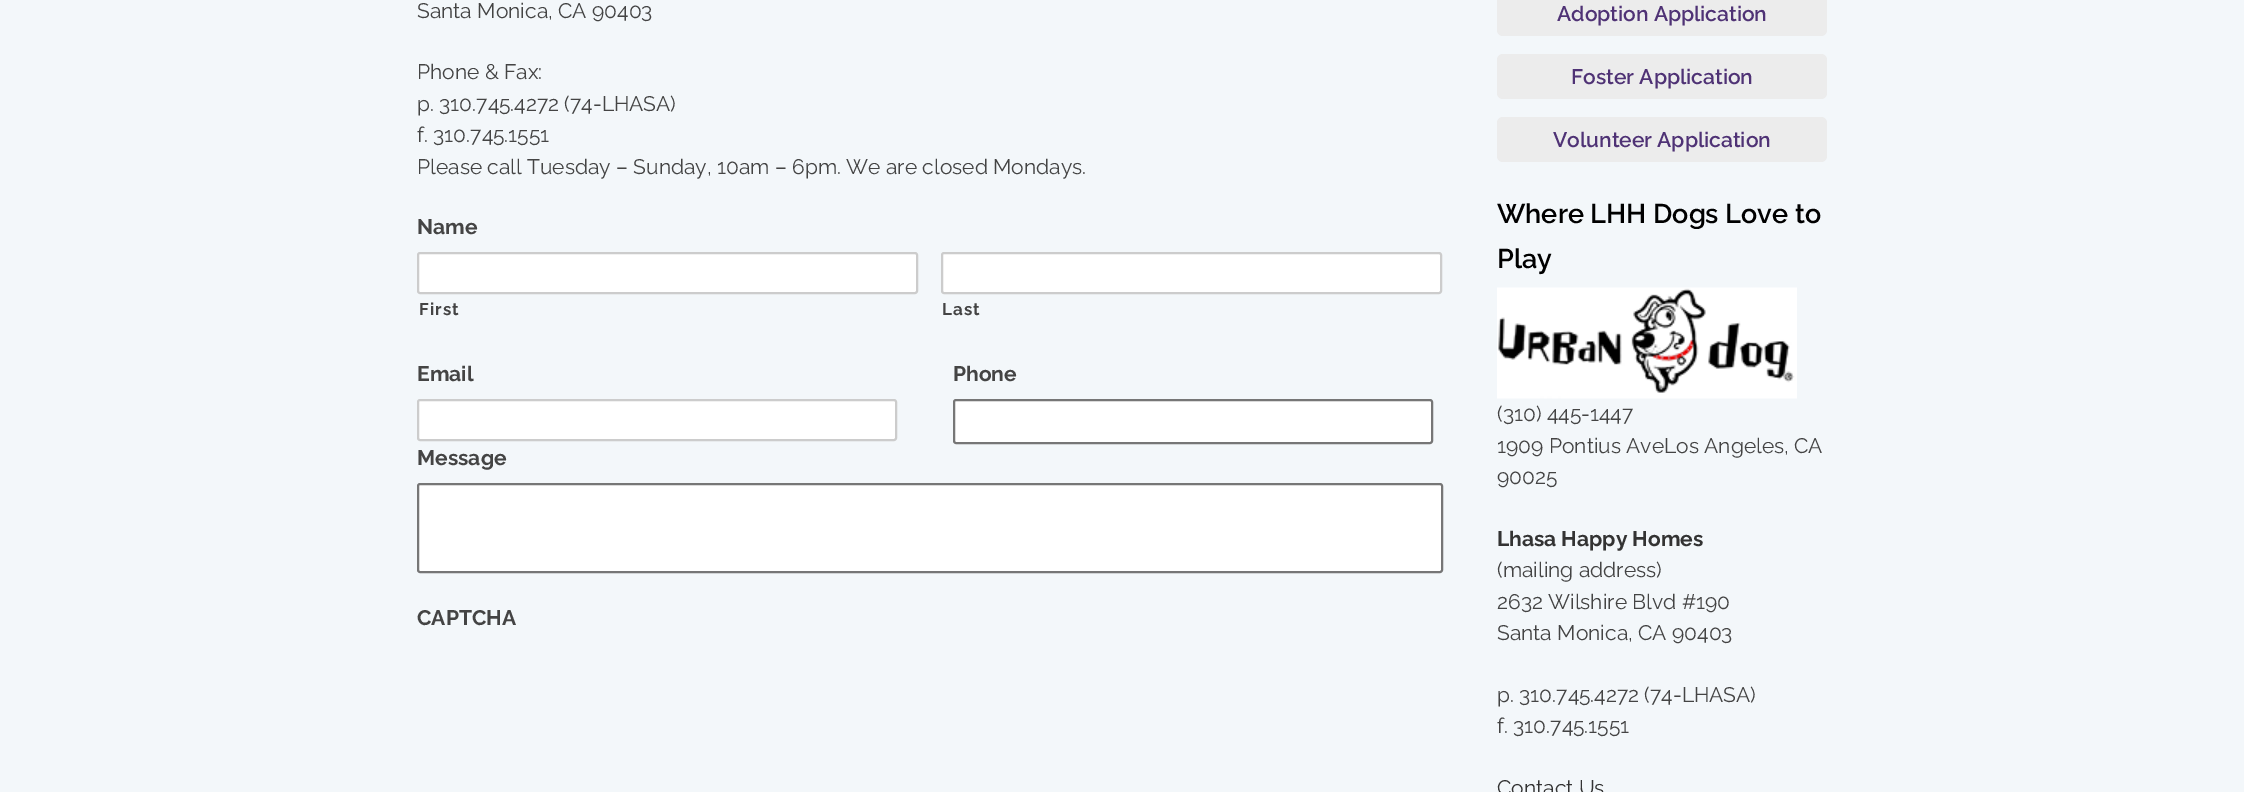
%!PS
<< /PageSize [2244 792] >> setpagedevice
/m/moveto load def
/f/fill load def
/s/stroke load def
/q/gsave load def
/Q_/grestore load def
/w/setlinewidth load def
/C { dup -16 bitshift 255 div exch dup -8 bitshift 255 and 255 div exch 255 and 255 div setrgbcolor } def
/F { [ exch dup neg 0 0 3 -1 roll 0 0 ] selectfont } def
/T { moveto show } def
/R { rectfill } def
/Q { 5 dict begin { /r /h /w /y /x } { exch def } forall
  x r add y moveto x w add y 2 copy h add r arct x w add y h add x 1 index r arct
  x y h add x y r arct x y 2 copy exch w add exch r arct closepath end } def
/I { 5 dict begin { /h /w /y /x /name } { exch def } forall
  gsave x y translate w h scale
  w h 8 [w 0 0 h 0 0] name (r) file false 3 colorimage grestore end } def
0 792 translate 1 -1 scale
4 setmiterlimit
16#F3F7FA C
0 0 2244 792 R
/Raleway-Regular 21 F
16#444444 C
(Santa Monica, CA 90403) 417 18 T
(Phone & Fax:) 417 79 T
(p. 310.745.4272 \(74-LHASA\)) 417 111 T
(f. 310.745.1551) 417 142 T
(Please call Tuesday – Sunday, 10am – 6pm. We are closed Mondays.) 417 174 T
/Raleway-Bold 21 F
(Name) 417 234 T
16#FFFFFF C
418 253 499 40 2 Q q f Q_
16#CCCCCC C
2 w
s
/Raleway-Bold 17 F
16#444444 C
419 315 m 1 0 (First) ashow
16#FFFFFF C
942 253 499 40 2 Q q f Q_
16#CCCCCC C
s
16#444444 C
942 315 m 1 0 (Last) ashow
/Raleway-Bold 21 F
(Email) 417 381 T
16#FFFFFF C
418 400 478 40 2 Q q f Q_
16#CCCCCC C
s
16#444444 C
(Phone) 953 381 T
16#FFFFFF C
954 400 478 43 2 Q q f Q_
16#767676 C
s
16#444444 C
(Message) 417 465 T
16#FFFFFF C
418 484 1024 88 2 Q q f Q_
16#767676 C
s
16#444444 C
(CAPTCHA) 417 625 T
16#ECECEC C
1497 -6 330 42 6 Q f
/Raleway-SemiBold 21 F
16#4F3275 C
(Adoption Application) 1557 21 T
16#ECECEC C
1497 54 330 45 6 Q f
16#4F3275 C
(Foster Application) 1571 84 T
16#ECECEC C
1497 117 330 45 6 Q f
16#4F3275 C
(Volunteer Application) 1553 147 T
/Raleway-SemiBold 27 F
16#000000 C
(Where LHH Dogs Love to) 1497 223 T
(Play) 1497 268 T
(1.rgb) 1497 287 300 112 I
/Raleway-Regular 21 F
16#444444 C
(\(310\) 445-1447) 1497 421 T
(1909 Pontius AveLos Angeles, CA) 1497 453 T
(90025) 1497 484 T
/Raleway-Bold 21 F
16#333333 C
(Lhasa Happy Homes) 1497 546 T
/Raleway-Regular 21 F
16#444444 C
(\(mailing address\)) 1497 577 T
(2632 Wilshire Blvd #190) 1497 609 T
(Santa Monica, CA 90403) 1497 640 T
(p. 310.745.4272 \(74-LHASA\)) 1497 702 T
(f. 310.745.1551) 1497 733 T
16#333333 C
(Contact Us) 1497 795 T
showpage
